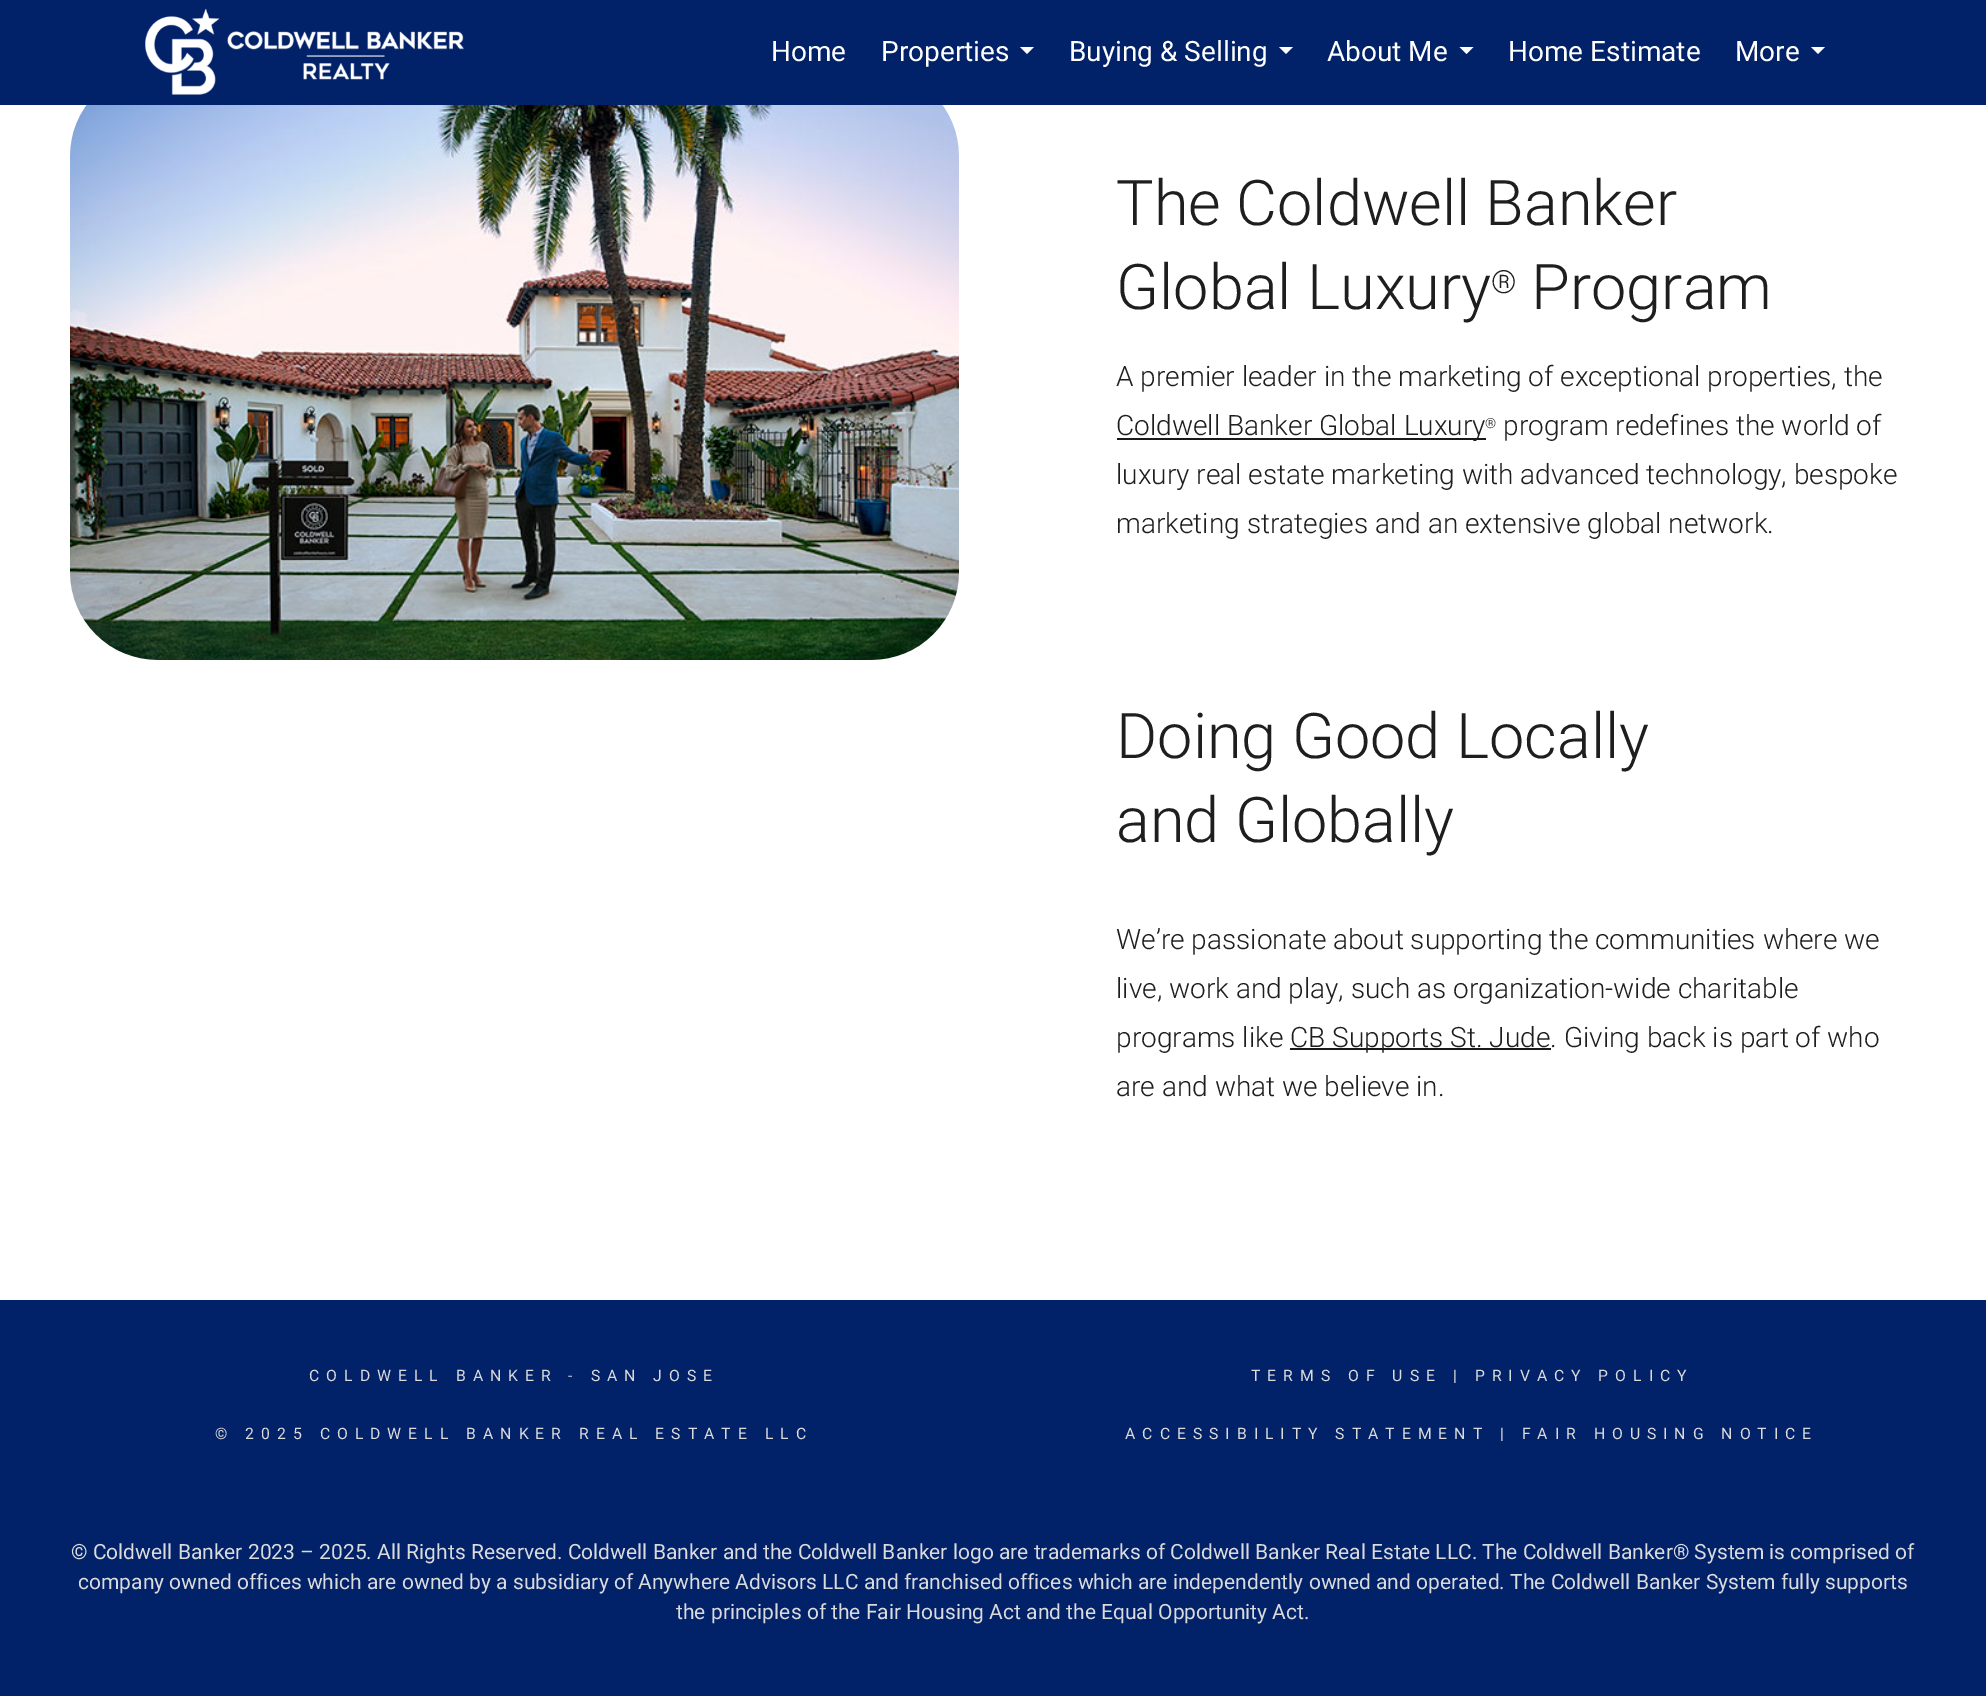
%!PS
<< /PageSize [1986 1696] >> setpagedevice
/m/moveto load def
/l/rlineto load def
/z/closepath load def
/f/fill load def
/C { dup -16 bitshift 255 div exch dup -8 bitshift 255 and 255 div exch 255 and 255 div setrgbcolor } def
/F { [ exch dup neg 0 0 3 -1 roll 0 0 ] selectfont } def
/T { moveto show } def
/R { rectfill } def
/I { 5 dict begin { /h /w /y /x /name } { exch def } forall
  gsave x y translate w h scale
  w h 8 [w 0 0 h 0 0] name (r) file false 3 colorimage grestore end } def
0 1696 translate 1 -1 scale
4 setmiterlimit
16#FFFFFF C
0 0 1986 1696 R
16#012169 C
0 0 1986 105 R
(1.rgb) 145 8 319 87 I
/Roboto-Regular 28 F
16#FFFFFF C
(Home) 771 61 T
(Properties) 881 61 T
1020 47 m 14 0 l -7 7 l z f
(Buying & Selling) 1069 61 T
1279 47 m 14 0 l -7 7 l z f
(About Me) 1327 61 T
1459.5 47 m 14 0 l -7 7 l z f
(Home Estimate) 1508 61 T
(More) 1735 61 T
1811 47 m 14 0 l -7 7 l z f
(2.rgb) 70 105 889 555 I
/Roboto-Light 63 F
16#1E1E1E C
(The Coldwell Banker) 1116 225 T
(Global Luxury) 1116 309 T
/Roboto-Light 32 F
(®) 1491 293 T
/Roboto-Light 63 F
(Program) 1531 309 T
/Roboto-Light 28 F
(A premier leader in the marketing of exceptional properties, the) 1116 386 T
16#191919 C
1117 438 369 2 R
16#1E1E1E C
(Coldwell Banker Global Luxury) 1116 435 T
/Roboto-Light 14 F
(®) 1485 428 T
/Roboto-Light 28 F
(program redefines the world of) 1503 435 T
(luxury real estate marketing with advanced technology, bespoke) 1116 484 T
(marketing strategies and an extensive global network.) 1116 533 T
/Roboto-Light 63 F
(Doing Good Locally) 1116 758 T
(and Globally) 1116 842 T
/Roboto-Light 28 F
(We’re passionate about supporting the communities where we) 1116 949 T
(live, work and play, such as organization-wide charitable) 1116 998 T
(programs like) 1116 1047 T
16#191919 C
1290 1048 261 2 R
16#1E1E1E C
(CB Supports St. Jude. Giving back is part of who) 1290 1047 T
(are and what we believe in.) 1116 1096 T
16#012169 C
0 1300 1986 396 R
/Roboto-Regular 15.75 F
16#DBDBDB C
309 1381 m 7 0 (COLDWELL BANKER - SAN JOSE) ashow
215 1439 m 7 0 (© 2025 COLDWELL BANKER REAL ESTATE LLC) ashow
1251 1381 m 7 0 (TERMS OF USE | PRIVACY POLICY) ashow
1125 1439 m 7 0 (ACCESSIBILITY STATEMENT | FAIR HOUSING NOTICE) ashow
/Roboto-Regular 21 F
(© Coldwell Banker 2023 – 2025. All Rights Reserved. Coldwell Banker and the Coldwell Banker logo are trademarks of Coldwell Banker Real Estate LLC. The Coldwell Banker® System is comprised of) 71 1559 T
(company owned offices which are owned by a subsidiary of Anywhere Advisors LLC and franchised offices which are independently owned and operated. The Coldwell Banker System fully supports) 78 1589 T
(the principles of the Fair Housing Act and the Equal Opportunity Act.) 676 1619 T
showpage
